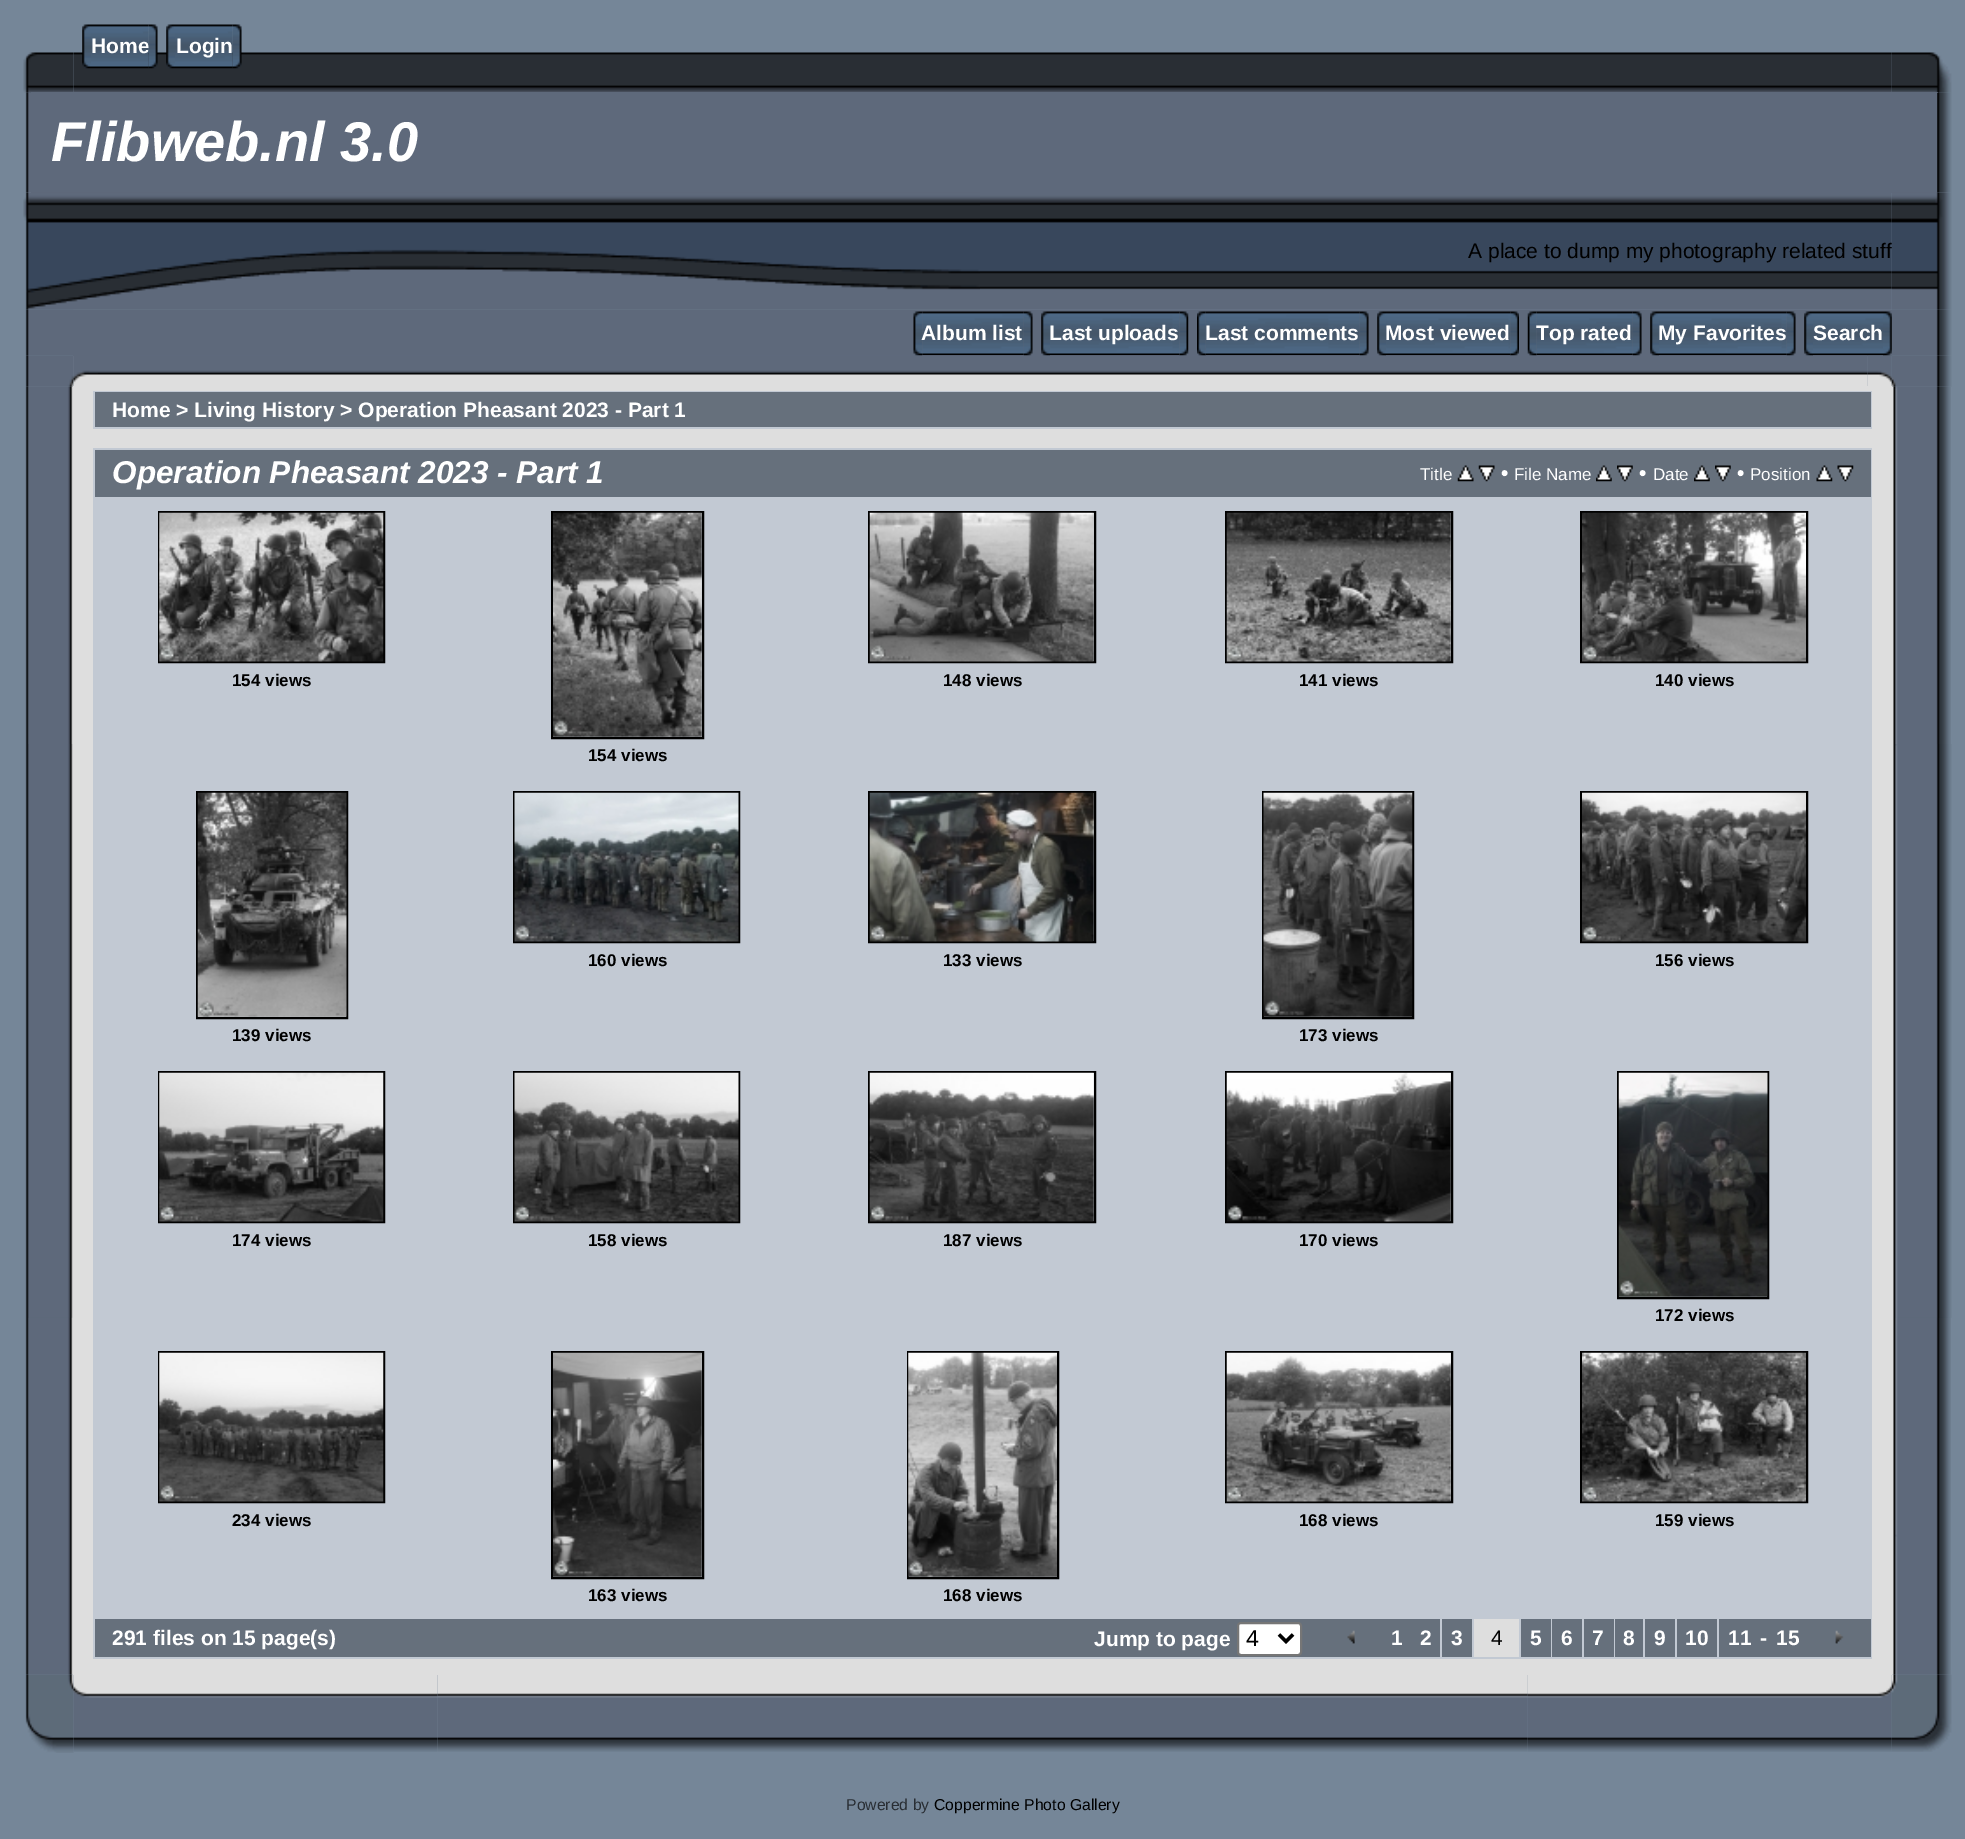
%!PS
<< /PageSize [1965 1839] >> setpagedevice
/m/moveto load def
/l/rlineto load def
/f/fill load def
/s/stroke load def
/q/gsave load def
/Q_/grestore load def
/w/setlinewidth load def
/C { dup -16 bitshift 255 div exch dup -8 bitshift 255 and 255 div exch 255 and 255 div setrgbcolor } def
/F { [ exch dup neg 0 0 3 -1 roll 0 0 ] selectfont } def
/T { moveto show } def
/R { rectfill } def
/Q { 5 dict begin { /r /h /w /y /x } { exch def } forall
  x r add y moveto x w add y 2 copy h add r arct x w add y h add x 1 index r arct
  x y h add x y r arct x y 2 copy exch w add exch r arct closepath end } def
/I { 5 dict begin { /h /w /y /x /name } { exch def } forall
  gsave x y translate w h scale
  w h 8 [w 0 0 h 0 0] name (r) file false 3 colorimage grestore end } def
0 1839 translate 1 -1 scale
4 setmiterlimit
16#758698 C
0 0 1965 1839 R
(7.rgb) 23 52 51 41 I
(1.rgb) 73 52 1819 40 I
(2.rgb) 82 24 9 45 I
(3.rgb) 91 24 58 45 I
/LiberationSans-Bold 21 F
16#FFFFFF C
(Home) 91 53 T
(4.rgb) 148 24 10 45 I
(2.rgb) 166 24 9 45 I
(5.rgb) 175 24 58 45 I
(Login) 176 53 T
(6.rgb) 232 24 10 45 I
(8.rgb) 1891 52 61 41 I
(9.rgb) 25 92 6 101 I
16#5E697B C
31 92 1907 101 R
/LiberationSans-BoldItalic 56 F
16#FFFFFF C
(Flibweb.nl 3.0) 51 161 T
(10.rgb) 1937 92 15 101 I
(11.rgb) 23 192 957 118 I
(12.rgb) 980 193 912 117 I
(13.rgb) 1891 192 61 118 I
/LiberationSans-Regular 21 F
16#000000 C
(A place to dump my photography related stuff) 1468 258 T
(14.rgb) 25 309 49 47 I
16#5E697B C
73 310 1819 46 R
(16.rgb) 922 311 102 45 I
(19.rgb) 1050 311 130 45 I
(22.rgb) 1205 311 155 45 I
(24.rgb) 1386 311 125 45 I
(27.rgb) 1536 311 97 45 I
(28.rgb) 1659 311 128 45 I
(30.rgb) 1813 311 70 45 I
(35.rgb) 98 355 1770 31 I
(15.rgb) 913 311 10 45 I
/LiberationSans-Bold 21 F
16#FFFFFF C
(Album list) 921 340 T
(17.rgb) 1023 311 10 45 I
(18.rgb) 1041 311 9 45 I
(Last uploads) 1049 340 T
(20.rgb) 1179 311 10 45 I
(21.rgb) 1197 311 9 45 I
(Last comments) 1205 340 T
(23.rgb) 1359 311 10 45 I
(18.rgb) 1377 311 9 45 I
(Most viewed) 1385 340 T
(25.rgb) 1510 311 9 45 I
(26.rgb) 1527 311 10 45 I
(Top rated) 1536 340 T
(17.rgb) 1632 311 10 45 I
(18.rgb) 1650 311 9 45 I
(My Favorites) 1658 340 T
(29.rgb) 1786 311 10 45 I
(18.rgb) 1804 311 9 45 I
(Search) 1813 340 T
(36.rgb) 1867 355 25 31 I
(32.rgb) 1892 309 60 47 I
(37.rgb) 1891 355 61 32 I
(31.rgb) 1883 311 9 45 I
(33.rgb) 25 355 49 32 I
(34.rgb) 73 356 25 30 I
(38.rgb) 25 386 48 1289 I
(39.rgb) 28 744 45 574 I
16#DEDEDE C
73 386 1819 1289 R
16#C2C9D3 C
93 391 1779 38 R
16#66707C C
95 392 1776 35 R
16#FFFFFF C
(Home > Living History > Operation Pheasant 2023 - Part 1) 112 417 T
16#C2C9D3 C
93 448 1779 1211 R
16#66707C C
95 450 1776 47 R
/LiberationSans-BoldItalic 31.5 F
16#FFFFFF C
(Operation Pheasant 2023 - Part 1) 112 483 T
/LiberationSans-Regular 17 F
(Title) 1420 480 T
(40.rgb) 1457 465 17 17 I
(41.rgb) 1478 465 17 17 I
/LiberationSans-Bold 21 F
(•) 1501 480 T
/LiberationSans-Regular 17 F
(File Name) 1514 480 T
(42.rgb) 1596 465 16 17 I
(43.rgb) 1617 465 16 17 I
/LiberationSans-Bold 21 F
(•) 1639 480 T
/LiberationSans-Regular 17 F
(Date) 1653 480 T
(42.rgb) 1694 465 16 17 I
(43.rgb) 1715 465 16 17 I
/LiberationSans-Bold 21 F
(•) 1737 480 T
/LiberationSans-Regular 17 F
(Position) 1750 480 T
(44.rgb) 1816 465 17 17 I
(45.rgb) 1837 465 17 17 I
16#000000 C
2 w
159 512 225 150 rectstroke
(46.rgb) 159 512 225 150 I
/LiberationSans-Bold 17 F
(154 views) 232 686 T
869 512 226 150 rectstroke
(47.rgb) 869 512 225 150 I
(148 views) 943 686 T
1226 512 226 150 rectstroke
(48.rgb) 1226 512 225 150 I
(141 views) 1299 686 T
1581 512 226 150 rectstroke
(49.rgb) 1582 512 224 150 I
(140 views) 1655 686 T
552 512 151 226 rectstroke
(50.rgb) 553 512 149 225 I
(154 views) 588 761 T
514 792 225 150 rectstroke
(51.rgb) 514 792 225 150 I
(160 views) 588 966 T
869 792 226 150 rectstroke
(52.rgb) 869 792 225 150 I
(133 views) 943 966 T
1581 792 226 150 rectstroke
(53.rgb) 1582 792 224 150 I
(156 views) 1655 966 T
197 792 150 226 rectstroke
(54.rgb) 197 792 150 225 I
(139 views) 232 1041 T
1263 792 150 226 rectstroke
(55.rgb) 1263 792 150 225 I
(173 views) 1299 1041 T
159 1072 225 150 rectstroke
(56.rgb) 159 1072 225 150 I
(174 views) 232 1246 T
514 1072 225 150 rectstroke
(57.rgb) 514 1072 225 150 I
(158 views) 588 1246 T
869 1072 226 150 rectstroke
(58.rgb) 869 1072 225 150 I
(187 views) 943 1246 T
1226 1072 226 150 rectstroke
(59.rgb) 1226 1072 225 150 I
(170 views) 1299 1246 T
1618 1072 150 226 rectstroke
(60.rgb) 1618 1072 150 225 I
(172 views) 1655 1321 T
159 1352 225 150 rectstroke
(61.rgb) 159 1352 225 150 I
(234 views) 232 1526 T
1226 1352 226 150 rectstroke
(62.rgb) 1226 1352 225 150 I
(168 views) 1299 1526 T
1581 1352 226 150 rectstroke
(63.rgb) 1582 1352 224 150 I
(159 views) 1655 1526 T
552 1352 151 226 rectstroke
(64.rgb) 553 1352 149 225 I
(163 views) 588 1601 T
908 1352 150 226 rectstroke
(65.rgb) 908 1352 149 225 I
(168 views) 943 1601 T
16#66707C C
95 1619 1345 38 R
/LiberationSans-Bold 21 F
16#FFFFFF C
(291 files on 15 page\(s\)) 112 1645 T
(Jump to page) 1094 1646 T
1238 1623 63 32 3 Q q f Q_
16#767676 C
s
16#000000 C
3.5 w
1279 1634.5 m 7 7 l 7 -7 l s
/LiberationSans-Regular 23 F
(4) 1246 1646 T
(66.rgb) 1347 1630 8 14 I
/LiberationSans-Bold 21 F
16#FFFFFF C
(1) 1391 1645 T
(2) 1420 1645 T
16#66707C C
1442 1619 30 38 R
16#FFFFFF C
(3) 1451 1645 T
16#DEDEDE C
1474 1619 45 38 R
/LiberationSans-Regular 21 F
16#000000 C
(4) 1491 1645 T
16#66707C C
1521 1619 30 38 R
/LiberationSans-Bold 21 F
16#FFFFFF C
(5) 1530 1645 T
16#66707C C
1552 1619 30 38 R
16#FFFFFF C
(6) 1561 1645 T
16#66707C C
1584 1619 30 38 R
16#FFFFFF C
(7) 1592 1645 T
16#66707C C
1615 1619 28 38 R
16#FFFFFF C
(8) 1623 1645 T
16#66707C C
1645 1619 30 38 R
16#FFFFFF C
(9) 1654 1645 T
16#66707C C
1677 1619 40 38 R
16#FFFFFF C
(10) 1685 1645 T
16#66707C C
1719 1619 152 38 R
16#FFFFFF C
(11) 1728 1645 T
(-) 1760 1645 T
(15) 1776 1645 T
(67.rgb) 1835 1630 9 14 I
(68.rgb) 1892 386 59 1289 I
(69.rgb) 1895 744 57 574 I
(70.rgb) 25 1674 49 79 I
(71.rgb) 73 1675 365 77 I
(72.rgb) 437 1675 1091 77 I
(73.rgb) 1527 1675 365 77 I
(74.rgb) 1891 1674 61 78 I
/LiberationSans-Regular 15.75 F
16#292E34 C
(Powered by) 846 1810 T
16#000000 C
(Coppermine Photo Gallery) 934 1810 T
showpage
